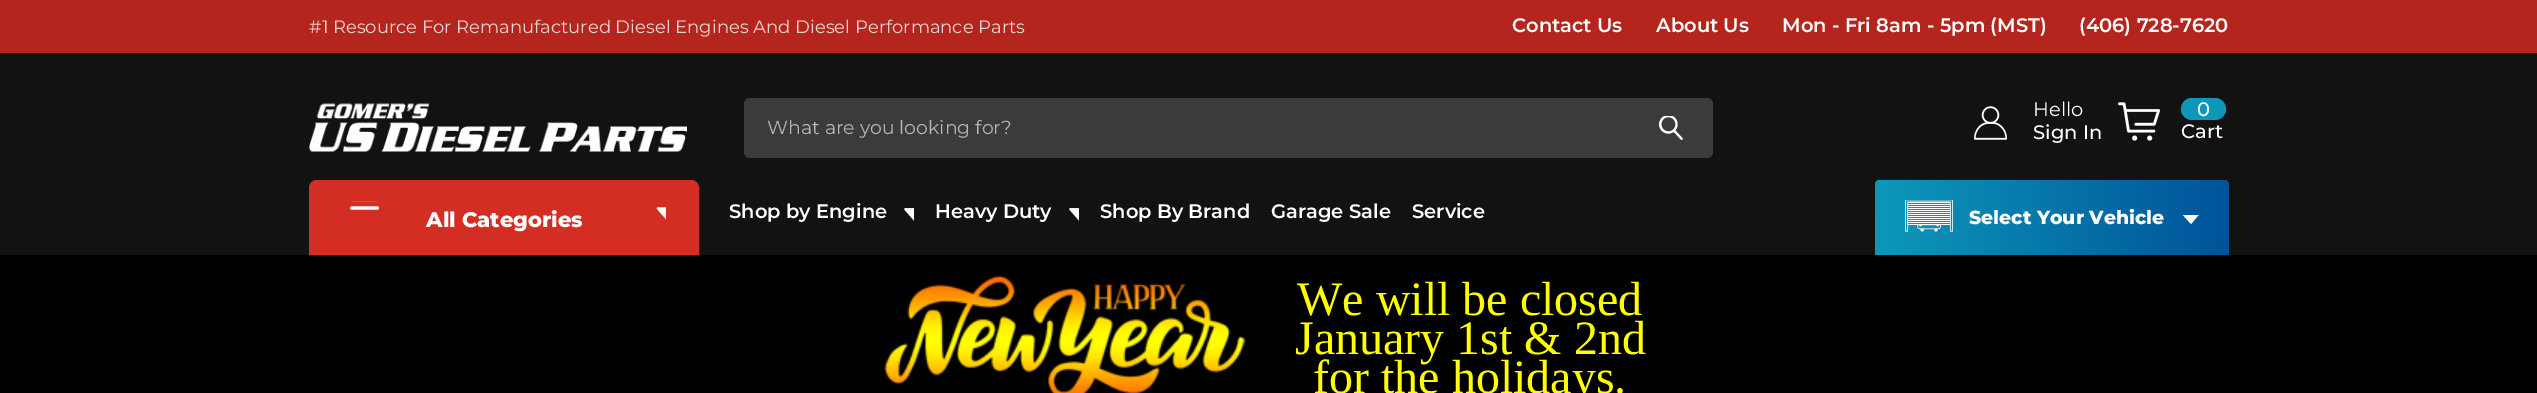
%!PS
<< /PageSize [2537 393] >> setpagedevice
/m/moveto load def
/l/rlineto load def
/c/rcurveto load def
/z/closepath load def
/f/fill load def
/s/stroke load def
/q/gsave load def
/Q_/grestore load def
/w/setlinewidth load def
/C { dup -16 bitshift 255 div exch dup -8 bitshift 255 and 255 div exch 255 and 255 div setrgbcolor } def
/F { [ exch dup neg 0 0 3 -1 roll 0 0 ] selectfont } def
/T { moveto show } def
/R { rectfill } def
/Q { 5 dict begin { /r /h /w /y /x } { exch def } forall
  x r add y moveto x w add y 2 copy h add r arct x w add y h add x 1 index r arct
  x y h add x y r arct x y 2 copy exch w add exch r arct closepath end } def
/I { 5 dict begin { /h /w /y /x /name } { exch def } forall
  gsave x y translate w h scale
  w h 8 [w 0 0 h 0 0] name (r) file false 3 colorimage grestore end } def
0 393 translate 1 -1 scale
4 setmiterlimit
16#000000 C
0 0 2537 393 R
16#B4251D C
0 0 2537 53 R
/Montserrat-Regular 18 F
16#ECD4D3 C
(#1 Resource For Remanufactured Diesel Engines And Diesel Performance Parts) 309 33 T
/Montserrat-SemiBold 19.5 F
16#FFFFFF C
(Contact Us) 1512 32 T
(About Us) 1656 32 T
(Mon - Fri 8am - 5pm \(MST\)) 1782 32 T
(\(406\) 728-7620) 2079 32 T
16#121212 C
0 53 2537 202 R
(1.rgb) 309 103 378 49 I
16#3B3B3B C
744 98 969 60 6 Q f
/Montserrat-Regular 18.9 F
16#B5B5B5 C
(What are you looking for?) 767 134 T
(2.rgb) 1659 116 24 24 I
(3.rgb) 1974 106 33 34 I
/Montserrat-Regular 19.5 F
16#FFFFFF C
(Hello) 2033 116 T
/Montserrat-Medium 19.5 F
(Sign In) 2033 139 T
(4.rgb) 2118 102 42 39 I
16#0D98BA C
2181 98 45 22 11 Q f
16#FFFFFF C
(0) 2197 116 T
(Cart) 2181 138 T
16#D42D23 C
317 181 m 374 0 l 4 0 7 3 7 7 c 0 66 l -388 0 l 0 -66 l 0 -4 3 -7 7 -7 c z q f Q_
2 w
s
(5.rgb) 349 201 31 9 I
/Montserrat-ExtraBold 21 F
16#FFFFFF C
(All Categories) 426 227 T
(6.rgb) 656 207 10 13 I
/Montserrat-SemiBold 19.5 F
(Shop by Engine) 729 218 T
(7.rgb) 904 208 10 13 I
(Heavy Duty) 935 218 T
(7.rgb) 1069 208 10 13 I
(Shop By Brand) 1100 218 T
(Garage Sale) 1271 218 T
(Service) 1412 218 T
q 1881 180 m 342 0 l 3.5 0 6 2.5 6 6 c 0 69 l -354 0 l 0 -69 l 0 -3.5 2.5 -6 6 -6 c z clip newpath
<< /ShadingType 2 /ColorSpace /DeviceRGB /Coords [2229 217 1875 218] /Extend [true true] /Function << /FunctionType 2 /Domain [0 1] /C0 [0 .325 .604] /C1 [.051 .596 .729] /N 1 >> >> shfill Q_
(8.rgb) 1905 200 48 32 I
/Montserrat-ExtraBold 18.9 F
(Select Your Vehicle) 1969 224 T
q
2183 215 16 9 rectclip
2191 224 m -8.5 -9.5 l 16.5 0 l z f
Q_
(9.rgb) 884 275 362 118 I
/LiberationSerif-Regular 48 F
16#FFFF00 C
(We will be closed) 1297 315 T
(January 1st & 2nd) 1295 354 T
(for the holidays.) 1313 393 T
showpage
